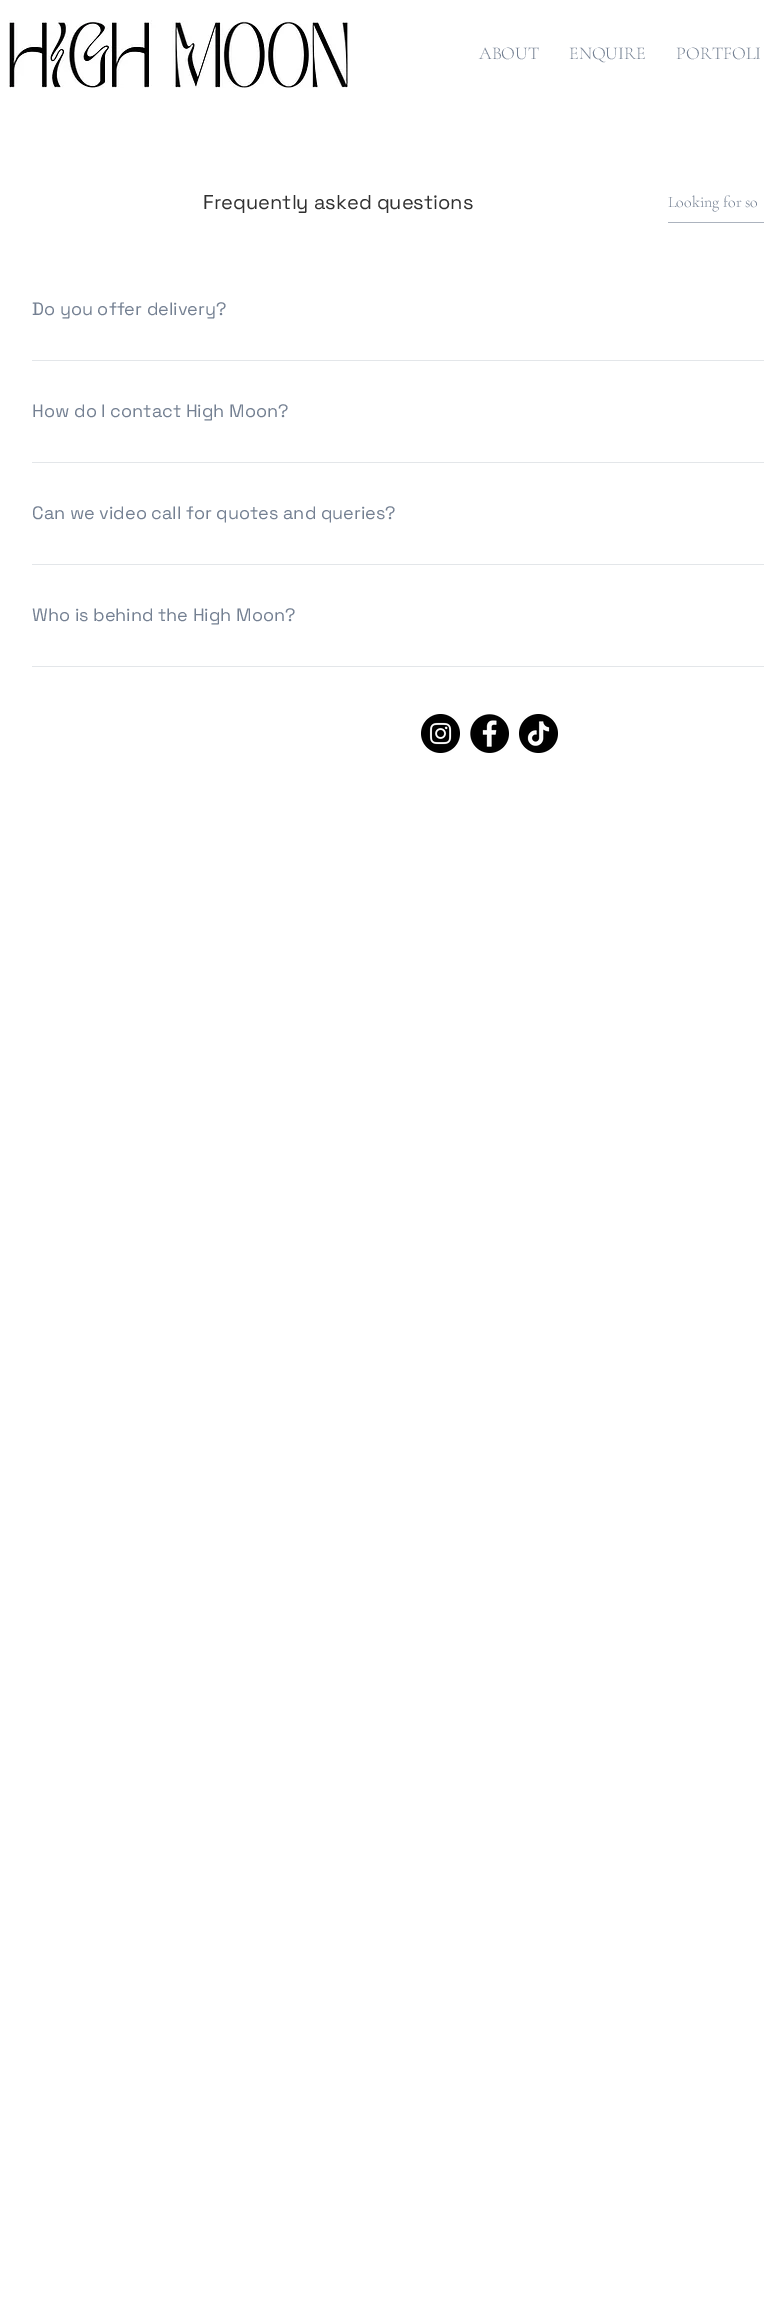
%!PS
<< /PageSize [764 2304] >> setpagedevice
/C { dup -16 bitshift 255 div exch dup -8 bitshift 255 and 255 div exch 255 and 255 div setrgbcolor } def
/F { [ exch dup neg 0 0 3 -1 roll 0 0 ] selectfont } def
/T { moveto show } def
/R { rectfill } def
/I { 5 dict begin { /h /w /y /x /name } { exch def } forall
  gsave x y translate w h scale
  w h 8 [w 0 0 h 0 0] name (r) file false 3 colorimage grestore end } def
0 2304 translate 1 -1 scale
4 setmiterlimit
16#FFFFFF C
0 0 764 2304 R
(1.rgb) 9 20 340 68 I
/CormorantGaramond-Light 18 F
16#748092 C
(ABOUT) 479 59 T
(ENQUIRE) 569 59 T
(PORTFOLI) 676 59 T
/SpaceGrotesk-Regular 20 F
16#303030 C
(Frequently asked questions) 203 209 T
16#ACB3BE C
668 222 96 1 R
/CormorantGaramond-Light 16 F
16#748092 C
(Looking for so) 668 207 T
/SpaceGrotesk-Regular 18 F
(Do you offer delivery?) 32 315 T
16#E3E6E9 C
32 360 732 1 R
16#748092 C
(How do I contact High Moon?) 32 417 T
16#E3E6E9 C
32 462 732 1 R
16#748092 C
(Can we video call for quotes and queries?) 32 519 T
16#E3E6E9 C
32 564 732 1 R
16#748092 C
(Who is behind the High Moon?) 32 621 T
16#E3E6E9 C
32 666 732 1 R
(2.rgb) 421 714 39 39 I
(3.rgb) 470 714 39 39 I
(4.rgb) 519 714 39 39 I
showpage
